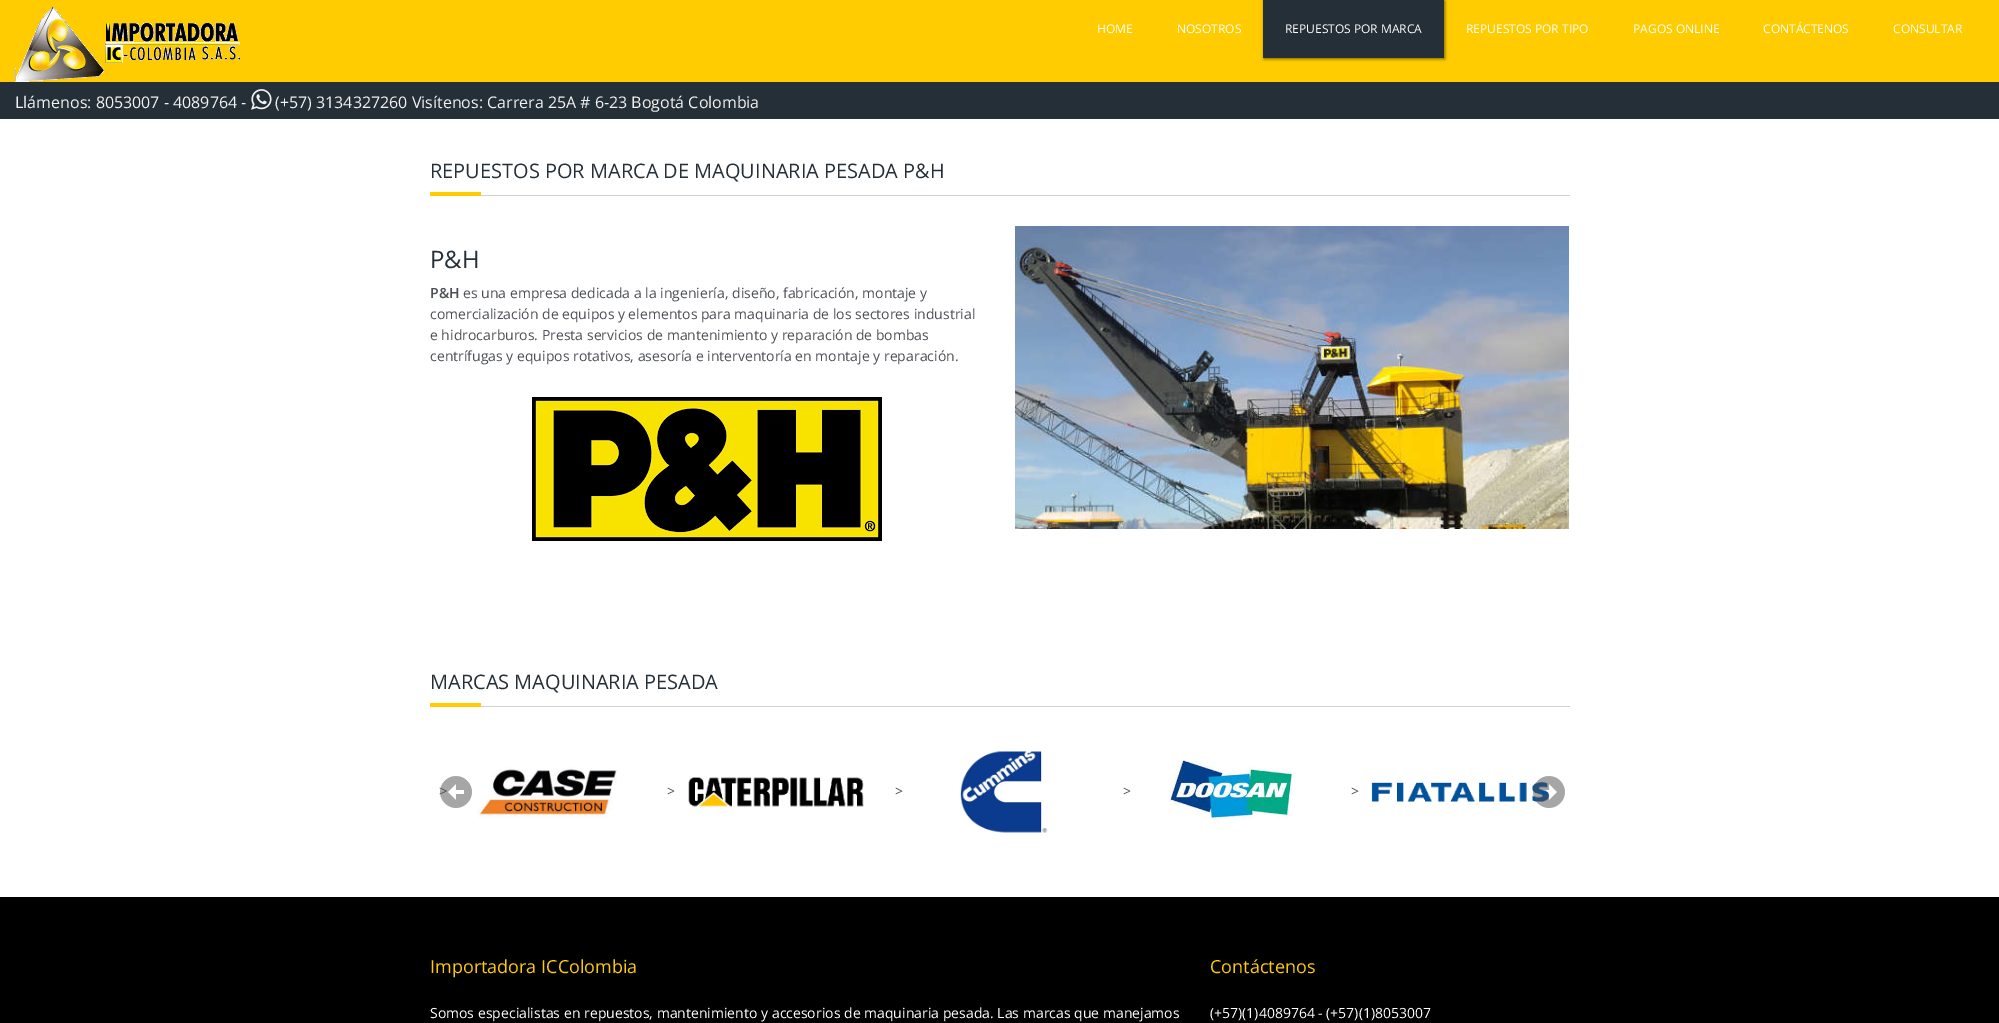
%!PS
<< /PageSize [1999 1023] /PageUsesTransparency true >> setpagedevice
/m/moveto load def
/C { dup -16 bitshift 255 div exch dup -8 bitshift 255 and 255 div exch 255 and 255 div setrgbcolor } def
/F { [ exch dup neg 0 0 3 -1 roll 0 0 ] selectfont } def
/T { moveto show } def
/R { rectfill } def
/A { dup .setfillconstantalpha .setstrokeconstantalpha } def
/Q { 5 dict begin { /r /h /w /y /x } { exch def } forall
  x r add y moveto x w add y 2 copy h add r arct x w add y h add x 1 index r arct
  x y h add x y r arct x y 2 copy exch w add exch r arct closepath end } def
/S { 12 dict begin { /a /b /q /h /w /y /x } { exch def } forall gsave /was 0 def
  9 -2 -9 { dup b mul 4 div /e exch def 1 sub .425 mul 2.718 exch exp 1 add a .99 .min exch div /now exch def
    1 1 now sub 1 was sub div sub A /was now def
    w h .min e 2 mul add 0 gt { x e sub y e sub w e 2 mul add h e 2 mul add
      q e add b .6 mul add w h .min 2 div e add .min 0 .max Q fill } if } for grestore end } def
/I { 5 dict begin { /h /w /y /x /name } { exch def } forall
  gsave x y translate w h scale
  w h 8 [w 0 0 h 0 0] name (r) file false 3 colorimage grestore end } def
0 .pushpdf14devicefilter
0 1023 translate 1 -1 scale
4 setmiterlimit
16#FFFFFF C
0 0 1999 1023 R
16#FFCC01 C
0 0 1999 82 R
(1.rgb) 15 7 225 75 I
/OpenSans-Regular 12 F
16#FFFFFF C
(HOME) 1097 33 T
(NOSOTROS) 1177 33 T
16#000000 C
1264 1 181 58 0 1.5 .5 S
16#252F38 C
1263 0 181 58 R
16#FFFFFF C
(REPUESTOS POR MARCA) 1285 33 T
(REPUESTOS POR TIPO) 1466 33 T
(PAGOS ONLINE) 1633 33 T
(CONTÁCTENOS) 1763 33 T
(CONSULTAR) 1893 33 T
16#252F38 C
0 82 1999 37 R
/OpenSans-Regular 16 F
16#F2F2F2 C
(Llámenos: 8053007 - 4089764 -) 15 108 T
(2.rgb) 251 89 21 21 I
(\(+57\) 3134327260 Visítenos: Carrera 25A # 6-23 Bogotá Colombia) 275 108 T
/OpenSans-Regular 20 F
16#252F38 C
(REPUESTOS POR MARCA DE MAQUINARIA PESADA P&H) 430 178 T
16#CDD1D0 C
481 195 1089 1 R
16#FFCC01 C
430 192 51 4 R
/OpenSans-Regular 24 F
16#252F38 C
(P&H) 430 268 T
/OpenSans-SemiBold 14 F
16#4C4F55 C
(P&H) 430 298 T
/OpenSans-Regular 14 F
(es una empresa dedicada a la ingeniería, diseño, fabricación, montaje y) 463 298 T
(comercialización de equipos y elementos para maquinaria de los sectores industrial) 430 319 T
(e hidrocarburos. Presta servicios de mantenimiento y reparación de bombas) 430 340 T
(centrífugas y equipos rotativos, asesoría e interventoría en montaje y reparación.) 430 361 T
(3.rgb) 532 397 350 144 I
(4.rgb) 1015 226 554 303 I
/OpenSans-Regular 20 F
16#252F38 C
(MARCAS MAQUINARIA PESADA) 430 689 T
16#CDD1D0 C
481 706 1089 1 R
16#FFCC01 C
430 703 51 4 R
/OpenSans-Regular 14 F
16#4C4F55 C
(>) 439 796 T
(5.rgb) 440 776 32 32 I
(11.rgb) 1371 782 179 20 I
(6.rgb) 1533 776 32 32 I
(7.rgb) 477 767 140 51 I
(>) 667 796 T
(8.rgb) 688 777 176 30 I
(>) 895 796 T
(9.rgb) 960 751 88 82 I
(>) 1123 796 T
(10.rgb) 1169 760 126 60 I
(>) 1351 796 T
16#000000 C
0 897 1999 126 R
/OpenSans-Regular 18 F
16#FFCC01 C
(Importadora ICColombia) 430 973 T
/OpenSans-Regular 14 F
16#FFFFFF C
430 1018 m .1 0 32 (Somos especialistas en repuestos, mantenimiento y accesorios de maquinaria pesada. Las marcas que manejamos) widthshow
/OpenSans-Regular 18 F
16#FFCC01 C
(Contáctenos) 1210 973 T
/OpenSans-Regular 14 F
16#FFFFFF C
(\(+57\)\(1\)4089764 - \(+57\)\(1\)8053007) 1210 1018 T
.poppdf14devicefilter showpage
